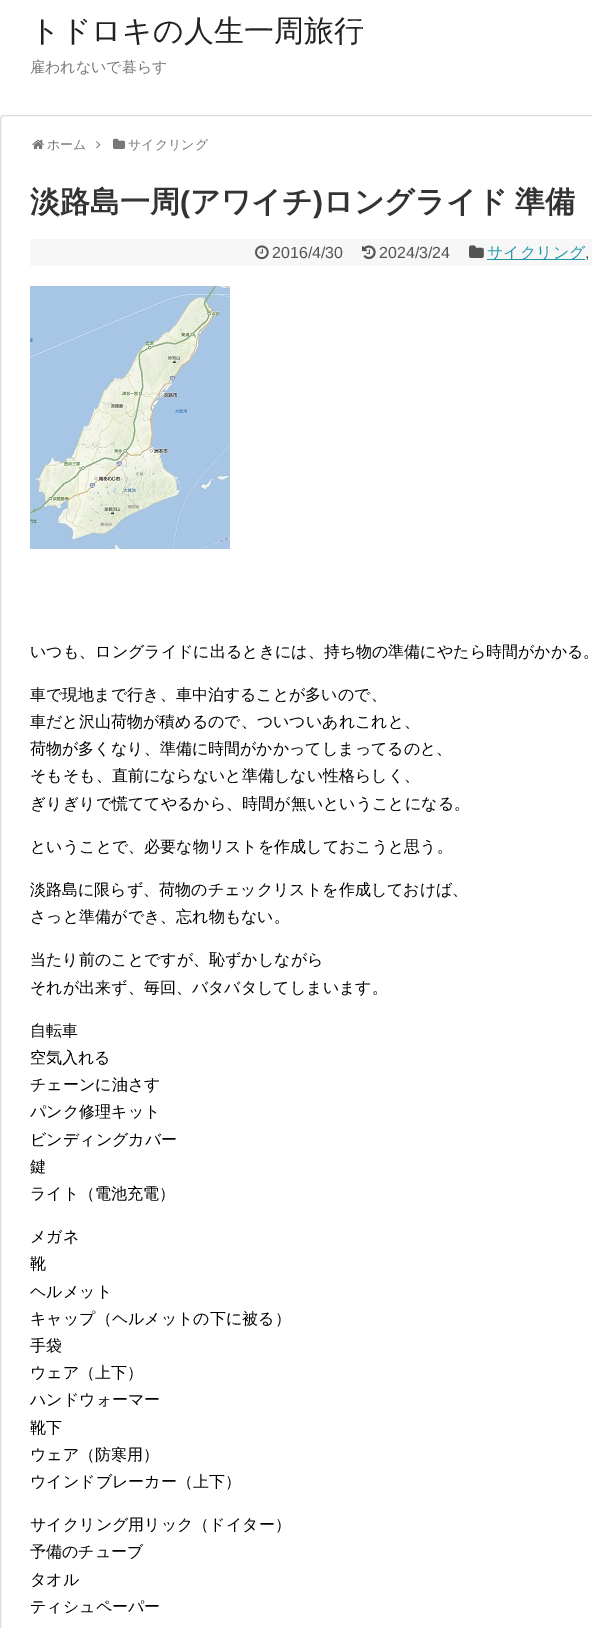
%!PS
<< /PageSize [592 1628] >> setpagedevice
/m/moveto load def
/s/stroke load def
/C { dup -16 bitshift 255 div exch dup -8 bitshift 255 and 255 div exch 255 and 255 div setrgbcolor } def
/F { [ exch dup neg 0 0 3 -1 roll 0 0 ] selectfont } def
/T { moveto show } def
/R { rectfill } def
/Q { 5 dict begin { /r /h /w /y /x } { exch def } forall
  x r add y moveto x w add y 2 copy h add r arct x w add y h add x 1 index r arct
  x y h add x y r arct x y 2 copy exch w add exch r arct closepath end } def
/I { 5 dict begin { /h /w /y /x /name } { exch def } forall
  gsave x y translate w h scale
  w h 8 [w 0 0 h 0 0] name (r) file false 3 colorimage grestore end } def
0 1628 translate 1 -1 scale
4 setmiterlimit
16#FFFFFF C
0 0 592 1628 R
/WenQuanYiZenHei-Medium 30 F
16#222222 C
(トドロキの人生一周旅行) 30 41 T
/WenQuanYiZenHei-Medium 15 F
16#777777 C
(雇われないで暮らす) 30 72 T
16#DDDDDD C
.5 115.5 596 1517 3.5 Q s
(1.rgb) 32 139 12 10 I
/WenQuanYiZenHei-Medium 13 F
16#777777 C
(ホーム) 47 149 T
(2.rgb) 96 141 5 8 I
(3.rgb) 113 138 13 11 I
(サイクリング) 128 149 T
/WenQuanYiZenHei-Bold 30 F
16#333333 C
(淡路島一周) 30 212 T
/LiberationSans-Bold 30 F
(\() 180 212 T
/WenQuanYiZenHei-Bold 30 F
(アワイチ) 190 212 T
/LiberationSans-Bold 30 F
(\)) 313 212 T
/WenQuanYiZenHei-Bold 30 F
323 212 m -1 0 32 (ロングライド 準備) widthshow
16#F7F7F7 C
30 239 562 27 R
(4.rgb) 255 245 14 15 I
/LiberationSans-Regular 16 F
16#555555 C
(2016/4/30) 272 258 T
(5.rgb) 362 245 14 15 I
(2024/3/24) 379 258 T
(6.rgb) 469 245 15 13 I
16#2098A8 C
487 259 98 1 R
/WenQuanYiZenHei-Medium 16 F
(サイクリング) 487 258 T
/LiberationSans-Regular 16 F
16#555555 C
(,) 585 258 T
(7.rgb) 30 286 200 263 I
/WenQuanYiZenHei-Medium 16 F
16#000000 C
(いつも、ロングライドに出るときには、持ち物の準備にやたら時間がかかる。) 30 657 T
(車で現地まで行き、車中泊することが多いので、) 30 700 T
(車だと沢山荷物が積めるので、ついついあれこれと、) 30 727 T
(荷物が多くなり、準備に時間がかかってしまってるのと、) 30 754 T
(そもそも、直前にならないと準備しない性格らしく、) 30 781 T
(ぎりぎりで慌ててやるから、時間が無いということになる。) 30 809 T
(ということで、必要な物リストを作成しておこうと思う。) 30 852 T
(淡路島に限らず、荷物のチェックリストを作成しておけば、) 30 895 T
(さっと準備ができ、忘れ物もない。) 30 922 T
(当たり前のことですが、恥ずかしながら) 30 965 T
(それが出来ず、毎回、バタバタしてしまいます。) 30 993 T
(自転車) 30 1036 T
(空気入れる) 30 1063 T
(チェーンに油さす) 30 1090 T
(パンク修理キット) 30 1117 T
(ビンディングカバー) 30 1145 T
(鍵) 30 1172 T
(ライト（電池充電）) 30 1199 T
(メガネ) 30 1242 T
(靴) 30 1269 T
(ヘルメット) 30 1297 T
(キャップ（ヘルメットの下に被る）) 30 1324 T
(手袋) 30 1351 T
(ウェア（上下）) 30 1378 T
(ハンドウォーマー) 30 1405 T
(靴下) 30 1433 T
(ウェア（防寒用）) 30 1460 T
(ウインドブレーカー（上下）) 30 1487 T
(サイクリング用リック（ドイター）) 30 1530 T
(予備のチューブ) 30 1557 T
(タオル) 30 1585 T
(ティシュペーパー) 30 1612 T
showpage
